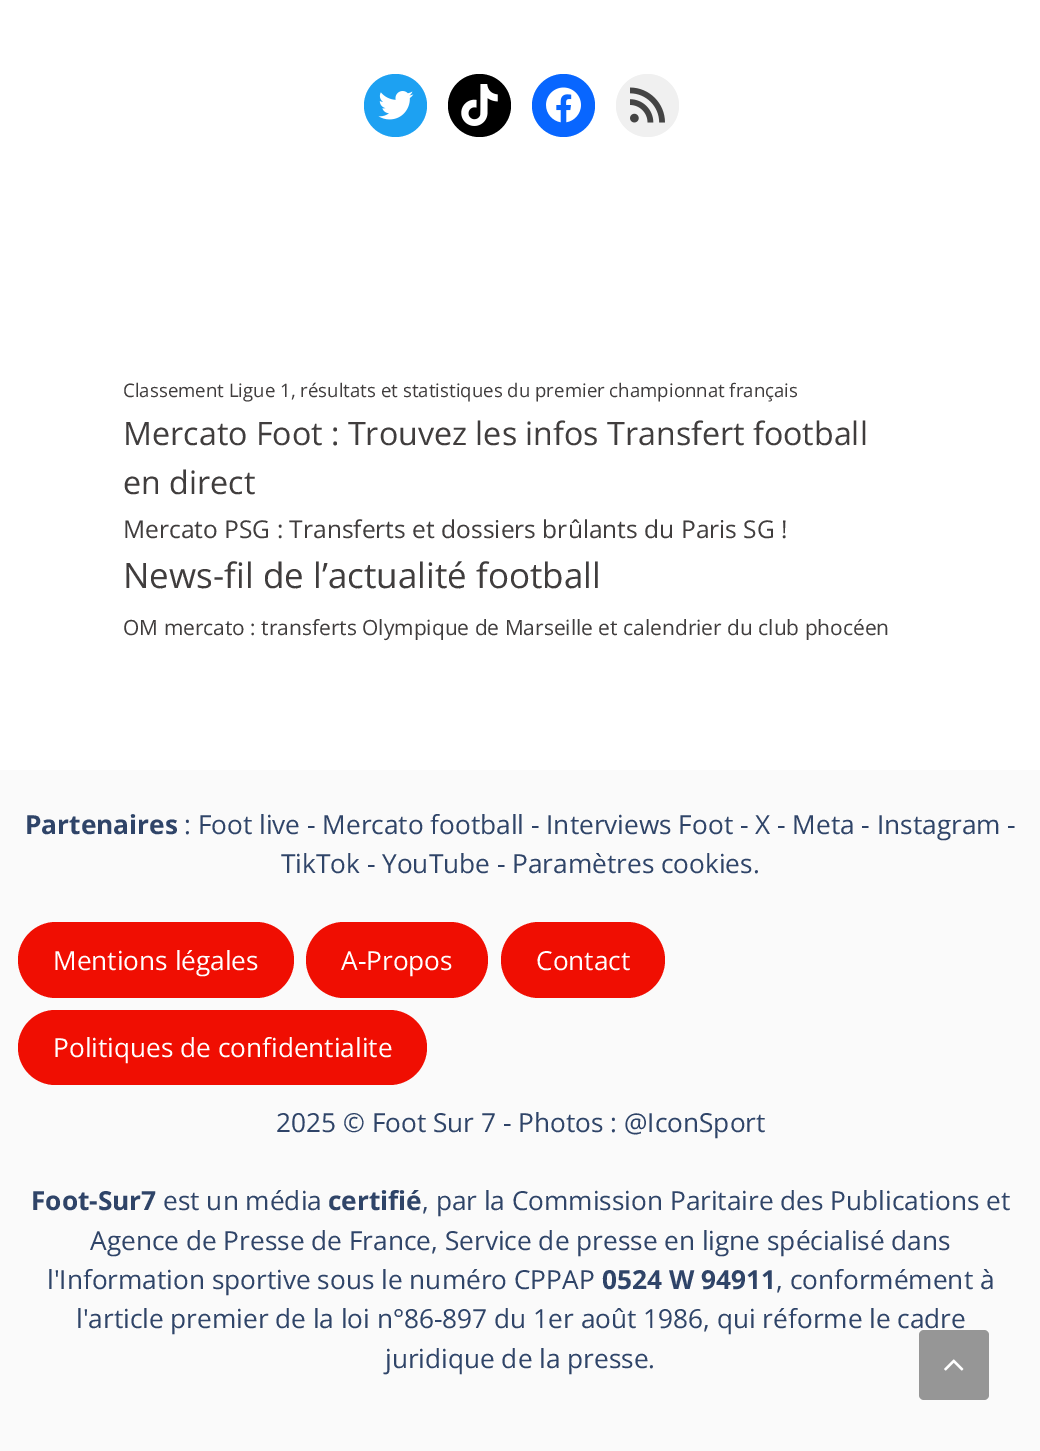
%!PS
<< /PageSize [1040 1451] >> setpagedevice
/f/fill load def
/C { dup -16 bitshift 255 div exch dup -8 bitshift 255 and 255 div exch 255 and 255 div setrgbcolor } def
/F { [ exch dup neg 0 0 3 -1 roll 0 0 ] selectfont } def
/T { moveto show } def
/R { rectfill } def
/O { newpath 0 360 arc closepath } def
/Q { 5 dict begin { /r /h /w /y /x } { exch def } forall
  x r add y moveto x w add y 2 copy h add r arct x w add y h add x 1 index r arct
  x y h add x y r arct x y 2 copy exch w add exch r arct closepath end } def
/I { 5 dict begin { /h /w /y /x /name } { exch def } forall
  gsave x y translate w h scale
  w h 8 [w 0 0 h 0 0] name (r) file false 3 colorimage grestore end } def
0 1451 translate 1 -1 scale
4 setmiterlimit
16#FAFAFA C
0 0 1040 1451 R
16#FFFFFF C
0 0 1040 770 R
16#1DA1F2 C
395.5 105.5 31.5 O f
(1.rgb) 378 91 36 29 I
16#000000 C
479.5 105.5 31.5 O f
(2.rgb) 461 84 37 42 I
16#0866FF C
563.5 105.5 31.5 O f
(3.rgb) 546 87 35 36 I
16#F0F0F0 C
647.5 105.5 31.5 O f
(4.rgb) 630 87 35 36 I
/OpenSans-Regular 18.65 F
16#403D3D C
(Classement Ligue 1, résultats et statistiques du premier championnat français) 123 397 T
/OpenSans-Regular 32.2 F
(Mercato Foot : Trouvez les infos Transfert football) 123 445 T
(en direct) 123 494 T
/OpenSans-Regular 24.55 F
(Mercato PSG : Transferts et dossiers brûlants du Paris SG !) 123 538 T
/OpenSans-Regular 35 F
(News-fil de l’actualité football) 123 588 T
/OpenSans-Regular 20.95 F
(OM mercato : transferts Olympique de Marseille et calendrier du club phocéen) 123 635 T
/OpenSans-Bold 26.25 F
16#2F4468 C
(Partenaires) 25 834 T
/OpenSans-Regular 26.25 F
(: Foot live - Mercato football - Interviews Foot - X - Meta - Instagram -) 184 834 T
(TikTok - YouTube - Paramètres cookies.) 281 873 T
16#F00E02 C
18 922 276 76 38 Q f
16#FFFFFF C
(Mentions légales) 53 970 T
16#F00E02 C
306 922 182 76 38 Q f
16#FFFFFF C
(A-Propos) 341 970 T
16#F00E02 C
501 922 164 76 38 Q f
16#FFFFFF C
(Contact) 536 970 T
16#F00E02 C
18 1010 409 75 37.5 Q f
16#FFFFFF C
(Politiques de confidentialite) 53 1057 T
16#2F4468 C
(2025 © Foot Sur 7 - Photos : @IconSport) 276 1132 T
/OpenSans-Bold 26.25 F
(Foot-Sur7) 31 1210 T
/OpenSans-Regular 26.25 F
(est un média) 163 1210 T
/OpenSans-Bold 26.25 F
(certifié) 328 1210 T
/OpenSans-Regular 26.25 F
(, par la Commission Paritaire des Publications et) 422 1210 T
(Agence de Presse de France, Service de presse en ligne spécialisé dans) 90 1250 T
(l'Information sportive sous le numéro CPPAP) 47 1289 T
/OpenSans-Bold 26.25 F
(0524 W 94911) 602 1289 T
/OpenSans-Regular 26.25 F
(, conformément à) 776 1289 T
(l'article premier de la loi n°86-897 du 1er août 1986, qui réforme le cadre) 76 1328 T
(juridique de la presse.) 385 1368 T
16#969696 C
919 1330 70 70 5 Q f
(5.rgb) 944 1359 20 12 I
showpage
